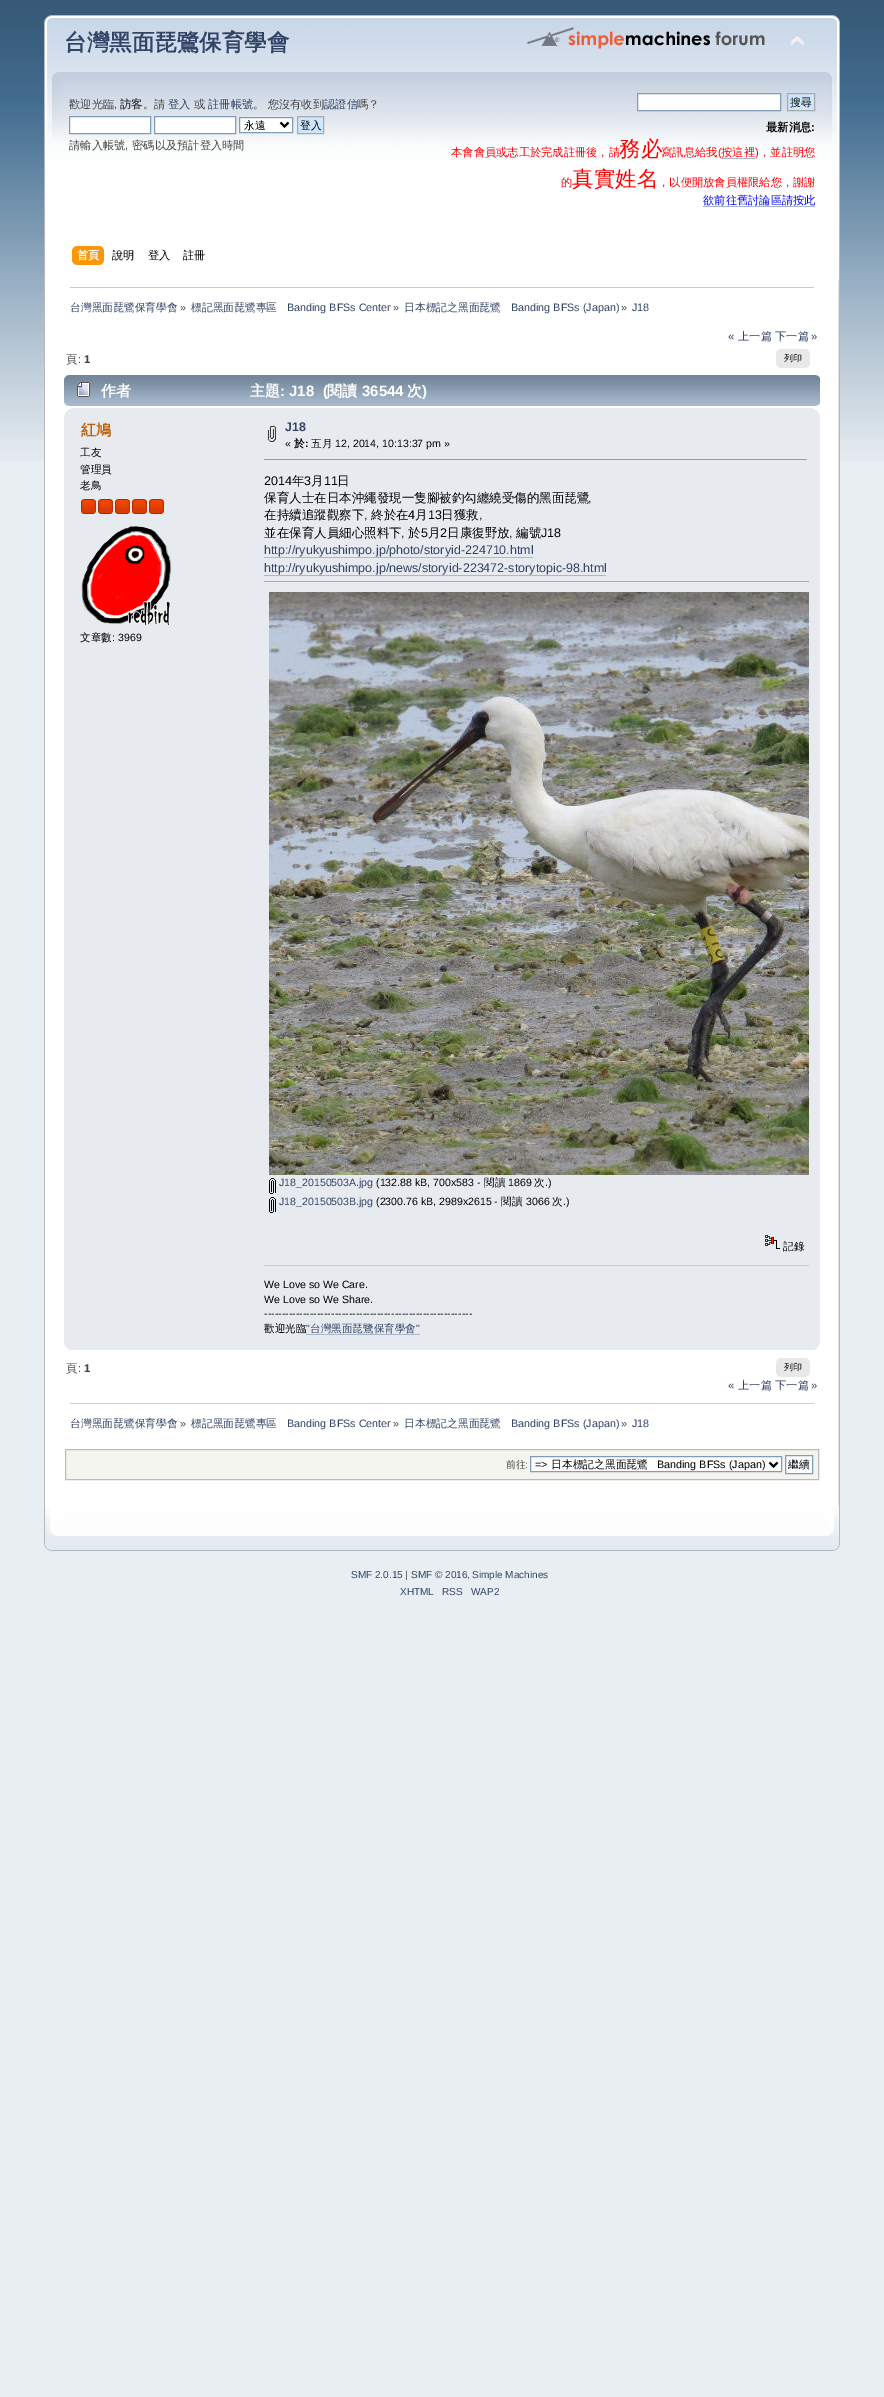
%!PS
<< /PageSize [884 2397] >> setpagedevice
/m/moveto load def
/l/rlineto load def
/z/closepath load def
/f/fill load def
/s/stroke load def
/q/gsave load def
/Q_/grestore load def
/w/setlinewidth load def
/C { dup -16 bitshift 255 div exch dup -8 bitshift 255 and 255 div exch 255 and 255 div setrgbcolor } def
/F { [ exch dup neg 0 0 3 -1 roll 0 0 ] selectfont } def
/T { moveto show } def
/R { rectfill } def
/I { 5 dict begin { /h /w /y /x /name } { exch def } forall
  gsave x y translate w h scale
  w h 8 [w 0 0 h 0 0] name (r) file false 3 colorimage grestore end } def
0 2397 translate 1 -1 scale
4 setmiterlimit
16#E9EEF2 C
0 0 884 2397 R
(1.rgb) 0 0 884 462 I
(2.rgb) 44 15 783 265 I
(3.rgb) 827 15 13 265 I
/WenQuanYiZenHei-Bold 22.5 F
16#334466 C
(台灣黑面琵鷺保育學會) 64 50 T
(4.rgb) 527 27 238 22 I
(5.rgb) 790 35 15 12 I
/WenQuanYiZenHei-Medium 11.25 F
16#444444 C
(歡迎光臨) 69 108 T
/LiberationSans-Regular 11.25 F
(,) 114 108 T
/WenQuanYiZenHei-Bold 11.25 F
(訪客) 120 108 T
/WenQuanYiZenHei-Medium 11.25 F
(。請) 143 108 T
16#334466 C
(登入) 168 108 T
16#444444 C
(或) 194 108 T
16#334466 C
(註冊帳號) 208 108 T
16#444444 C
(。 您沒有收到) 253 108 T
16#334466 C
(認證信) 324 108 T
16#444444 C
(嗎？) 357 108 T
16#FFFFFF C
69.5 116.5 m 81 0 l 0 17 l -81 0 l z q f Q_
16#7F9DB9 C
s
16#FFFFFF C
154.5 116.5 m 81 0 l 0 17 l -81 0 l z q f Q_
16#7F9DB9 C
s
16#FFFFFF C
239.5 117.5 m 53 0 l 0 15 l -53 0 l z q f Q_
16#7F9DB9 C
s
16#000000 C
2 w
280.5 122.5 m 4 4 l 4 -4 l s
/WenQuanYiZenHei-Medium 10.75 F
(永遠) 244 129 T
16#CDE7FF C
297.5 116.5 m 26 0 l 0 17 l -26 0 l z q f Q_
16#AAAAAA C
1 w
s
16#000000 C
(登入) 300 129 T
/WenQuanYiZenHei-Medium 11.25 F
16#444444 C
(請輸入帳號) 69 149 T
/LiberationSans-Regular 11.25 F
(,) 125 149 T
/WenQuanYiZenHei-Medium 11.25 F
(密碼以及預計登入時間) 132 149 T
16#FFFFFF C
637.5 93.5 m 143 0 l 0 17 l -143 0 l z q f Q_
16#7F9DB9 C
s
16#CDE7FF C
787.5 93.5 m 27 0 l 0 17 l -27 0 l z q f Q_
16#AAAAAA C
s
/WenQuanYiZenHei-Medium 10.75 F
16#000000 C
(搜尋) 790 106 T
/WenQuanYiZenHei-Bold 11.25 F
(最新消息) 766 131 T
/LiberationSans-Bold 11.25 F
(:) 811 131 T
/WenQuanYiZenHei-Medium 11.25 F
16#FF0000 C
(本會會員或志工於完成註冊後，請) 451 156 T
/WenQuanYiZenHei-Medium 21.5 F
(務必) 619 156 T
/WenQuanYiZenHei-Medium 11.25 F
(寫訊息給我) 661 156 T
/LiberationSans-Regular 11.25 F
(\() 718 156 T
16#A8B6CF C
721 158 34 1 R
/WenQuanYiZenHei-Medium 11.25 F
16#FF0000 C
(按這裡) 721 156 T
/LiberationSans-Regular 11.25 F
(\)) 755 156 T
/WenQuanYiZenHei-Medium 11.25 F
(，並註明您) 759 156 T
(的) 561 186 T
/WenQuanYiZenHei-Medium 21.5 F
(真實姓名) 572 186 T
/WenQuanYiZenHei-Medium 11.25 F
(，以便開放會員權限給您，謝謝) 658 186 T
16#0000FF C
(欲前往舊討論區請按此) 703 204 T
16#A8B6CF C
703 206 112 1 R
(6.rgb) 77 246 27 19 I
(7.rgb) 72 246 5 19 I
/WenQuanYiZenHei-Bold 11.25 F
16#FFFFFF C
(首頁) 77 259 T
/WenQuanYiZenHei-Medium 11.25 F
16#000000 C
(說明) 112 259 T
(登入) 148 259 T
(註冊) 183 259 T
16#FFFFFF C
45 280 793 1227 R
16#B7B7B7 C
44 280 1 1227 R
(8.rgb) 838 280 2 1227 I
16#CCCCCC C
70 287 744 1 R
/WenQuanYiZenHei-Medium 10.75 F
16#334466 C
(台灣黑面琵鷺保育學會) 70 311 T
/LiberationSans-Regular 10.75 F
16#444444 C
(») 180 311 T
/WenQuanYiZenHei-Medium 10.75 F
16#334466 C
(標記黑面琵鷺專區) 191 311 T
/LiberationSans-Regular 10.75 F
(Banding BFSs Center) 287 311 T
16#444444 C
(») 393 311 T
/WenQuanYiZenHei-Medium 10.75 F
16#334466 C
(日本標記之黑面琵鷺) 404 311 T
/LiberationSans-Regular 10.75 F
(Banding BFSs \(Japan\)) 511 311 T
16#444444 C
(») 621 311 T
16#334466 C
(J18) 632 311 T
/LiberationSans-Regular 11.25 F
(«) 728 340 T
/WenQuanYiZenHei-Medium 11.25 F
(上一篇 下一篇) 738 340 T
/LiberationSans-Regular 11.25 F
(») 811 340 T
/WenQuanYiZenHei-Medium 11.25 F
16#444444 C
(頁) 66 363 T
/LiberationSans-Regular 11.25 F
(:) 78 363 T
/LiberationSans-Bold 11.25 F
(1) 84 363 T
16#E8E8E8 C
780 349 26 19 R
(9.rgb) 776 349 4 19 I
(10.rgb) 806 349 4 19 I
/WenQuanYiZenHei-Medium 9 F
16#000000 C
(列印) 784 361 T
(11.rgb) 64 375 751 31 I
(12.rgb) 815 375 5 31 I
(13.rgb) 77 382 13 15 I
/WenQuanYiZenHei-Bold 15 F
16#FFFFFF C
(作者) 101 396 T
(主題) 250 396 T
/LiberationSans-Bold 15 F
(: J18  \() 280 396 T
/WenQuanYiZenHei-Bold 15 F
(閱讀) 327 396 T
/LiberationSans-Bold 15 F
(36544) 362 396 T
/WenQuanYiZenHei-Bold 15 F
(次) 407 396 T
/LiberationSans-Bold 15 F
(\)) 422 396 T
16#E7EAEF C
64 408 756 942 R
(14.rgb) 64 408 9 9 I
(15.rgb) 811 408 9 8 I
/WenQuanYiZenHei-Bold 15 F
16#C06002 C
(紅鳩) 81 435 T
/WenQuanYiZenHei-Medium 10.6 F
16#000000 C
(工友) 80 456 T
(管理員) 80 473 T
(老鳥) 80 489 T
(16.rgb) 81 499 15 15 I
(16.rgb) 98 499 15 15 I
(16.rgb) 115 499 15 15 I
(16.rgb) 132 499 15 15 I
(16.rgb) 149 499 15 15 I
(17.rgb) 81 526 91 99 I
(文章數) 80 641 T
/LiberationSans-Regular 10.6 F
(: 3969) 112 641 T
(18.rgb) 267 425 9 17 I
/LiberationSans-Bold 12.5 F
16#334466 C
(J18) 285 431 T
/LiberationSans-Regular 10.6 F
16#000000 C
(«) 285 447 T
/WenQuanYiZenHei-Bold 10.6 F
(於) 294 447 T
/LiberationSans-Bold 10.6 F
(:) 305 447 T
/WenQuanYiZenHei-Medium 10.6 F
(五月) 311 447 T
/LiberationSans-Regular 10.6 F
(12, 2014, 10:13:37 pm ») 335 447 T
16#9999AA C
264 459 543 1 R
/LiberationSans-Regular 12.5 F
16#000000 C
(2014) 264 485 T
/WenQuanYiZenHei-Medium 12.5 F
(年) 292 485 T
/LiberationSans-Regular 12.5 F
(3) 304 485 T
/WenQuanYiZenHei-Medium 12.5 F
(月) 311 485 T
/LiberationSans-Regular 12.5 F
(11) 324 485 T
/WenQuanYiZenHei-Medium 12.5 F
(日) 337 485 T
(保育人士在日本沖繩發現一隻腳被釣勾纏繞受傷的黑面琵鷺) 264 502 T
/LiberationSans-Regular 12.5 F
(,) 588 502 T
/WenQuanYiZenHei-Medium 12.5 F
(在持續追蹤觀察下) 264 519 T
/LiberationSans-Regular 12.5 F
(,) 364 519 T
/WenQuanYiZenHei-Medium 12.5 F
(終於在) 371 519 T
/LiberationSans-Regular 12.5 F
(4) 408 519 T
/WenQuanYiZenHei-Medium 12.5 F
(月) 415 519 T
/LiberationSans-Regular 12.5 F
(13) 428 519 T
/WenQuanYiZenHei-Medium 12.5 F
(日獲救) 441 519 T
/LiberationSans-Regular 12.5 F
(,) 479 519 T
/WenQuanYiZenHei-Medium 12.5 F
(並在保育人員細心照料下) 264 537 T
/LiberationSans-Regular 12.5 F
(,) 401 537 T
/WenQuanYiZenHei-Medium 12.5 F
(於) 408 537 T
/LiberationSans-Regular 12.5 F
(5) 421 537 T
/WenQuanYiZenHei-Medium 12.5 F
(月) 428 537 T
/LiberationSans-Regular 12.5 F
(2) 440 537 T
/WenQuanYiZenHei-Medium 12.5 F
(日康復野放) 447 537 T
/LiberationSans-Regular 12.5 F
(,) 509 537 T
/WenQuanYiZenHei-Medium 12.5 F
(編號) 516 537 T
/LiberationSans-Regular 12.5 F
(J18) 541 537 T
16#334466 C
(http://ryukyushimpo.jp/photo/storyid-224710.html) 264 554 T
16#A8B6CF C
264 557 269 1 R
16#334466 C
(http://ryukyushimpo.jp/news/storyid-223472-storytopic-98.html) 264 572 T
16#A8B6CF C
264 575 342 1 R
16#AAAAAA C
264 581 545 1 R
(19.rgb) 269 592 540 583 I
(20.rgb) 269 1178 7 16 I
/LiberationSans-Regular 10.6 F
16#334466 C
(J18_20150503A.jpg) 279 1186 T
16#000000 C
(\(132.88 kB, 700x583 -) 376 1186 T
/WenQuanYiZenHei-Medium 10.6 F
(閱讀) 484 1186 T
/LiberationSans-Regular 10.6 F
(1869) 508 1186 T
/WenQuanYiZenHei-Medium 10.6 F
(次) 534 1186 T
/LiberationSans-Regular 10.6 F
(.\)) 545 1186 T
(20.rgb) 269 1197 7 16 I
16#334466 C
(J18_20150503B.jpg) 279 1205 T
16#000000 C
(\(2300.76 kB, 2989x2615 -) 376 1205 T
/WenQuanYiZenHei-Medium 10.6 F
(閱讀) 501 1205 T
/LiberationSans-Regular 10.6 F
(3066) 526 1205 T
/WenQuanYiZenHei-Medium 10.6 F
(次) 552 1205 T
/LiberationSans-Regular 10.6 F
(.\)) 563 1205 T
(21.rgb) 765 1235 15 14 I
/WenQuanYiZenHei-Medium 10.6 F
(記錄) 783 1250 T
16#CCCCCC C
264 1265 545 1 R
/LiberationSans-Regular 10.6 F
16#000000 C
(We Love so We Care.) 264 1288 T
(We Love so We Share.) 264 1303 T
(-----------------------------------------------------------) 264 1317 T
/WenQuanYiZenHei-Medium 10.6 F
(歡迎光臨) 264 1332 T
/LiberationSans-Regular 10.6 F
16#334466 C
(") 306 1332 T
/WenQuanYiZenHei-Medium 10.6 F
(台灣黑面琵鷺保育學會) 310 1332 T
16#A8B6CF C
306 1334 114 1 R
/LiberationSans-Regular 10.6 F
16#334466 C
(") 416 1332 T
(22.rgb) 64 1342 6 8 I
(23.rgb) 814 1342 6 8 I
/WenQuanYiZenHei-Medium 11.25 F
16#444444 C
(頁) 66 1372 T
/LiberationSans-Regular 11.25 F
(:) 78 1372 T
/LiberationSans-Bold 11.25 F
(1) 84 1372 T
16#E8E8E8 C
780 1358 26 19 R
(9.rgb) 776 1358 4 19 I
(10.rgb) 806 1358 4 19 I
/WenQuanYiZenHei-Medium 9 F
16#000000 C
(列印) 784 1370 T
/LiberationSans-Regular 11.25 F
16#334466 C
(«) 728 1389 T
/WenQuanYiZenHei-Medium 11.25 F
(上一篇 下一篇) 738 1389 T
/LiberationSans-Regular 11.25 F
(») 811 1389 T
16#CCCCCC C
70 1403 744 1 R
/WenQuanYiZenHei-Medium 10.75 F
16#334466 C
(台灣黑面琵鷺保育學會) 70 1427 T
/LiberationSans-Regular 10.75 F
16#444444 C
(») 180 1427 T
/WenQuanYiZenHei-Medium 10.75 F
16#334466 C
(標記黑面琵鷺專區) 191 1427 T
/LiberationSans-Regular 10.75 F
(Banding BFSs Center) 287 1427 T
16#444444 C
(») 393 1427 T
/WenQuanYiZenHei-Medium 10.75 F
16#334466 C
(日本標記之黑面琵鷺) 404 1427 T
/LiberationSans-Regular 10.75 F
(Banding BFSs \(Japan\)) 511 1427 T
16#444444 C
(») 621 1427 T
16#334466 C
(J18) 632 1427 T
16#F5F5F0 C
65.5 1449.5 m 753 0 l 0 30 l -753 0 l z q f Q_
16#BBBBBB C
s
/WenQuanYiZenHei-Medium 10 F
16#444444 C
(前往) 506 1468 T
/LiberationSans-Regular 10 F
(:) 525 1468 T
16#FFFFFF C
530.5 1456.5 m 251 0 l 0 15 l -251 0 l z q f Q_
16#7F9DB9 C
s
16#000000 C
2 w
769.5 1462.5 m 4 4 l 4 -4 l s
/LiberationSans-Regular 10.75 F
(=>) 535 1468 T
/WenQuanYiZenHei-Medium 10.75 F
(日本標記之黑面琵鷺) 551 1468 T
/LiberationSans-Regular 10.75 F
(Banding BFSs \(Japan\)) 657 1468 T
16#FFFFFF C
785.5 1455.5 m 27 0 l 0 18 l -27 0 l z q f Q_
16#7F9DB9 C
1 w
s
/WenQuanYiZenHei-Medium 10.75 F
16#000000 C
(繼續) 788 1468 T
(24.rgb) 44 1507 784 44 I
(25.rgb) 828 1507 12 44 I
/LiberationSans-Regular 10 F
16#334466 C
(SMF 2.0.15) 351 1578 T
16#444444 C
(|) 405 1578 T
16#334466 C
(SMF © 2016) 411 1578 T
16#444444 C
(,) 467 1578 T
16#334466 C
(Simple Machines) 472 1578 T
(XHTML) 400 1595 T
(RSS) 442 1595 T
(WAP2) 471 1595 T
showpage
